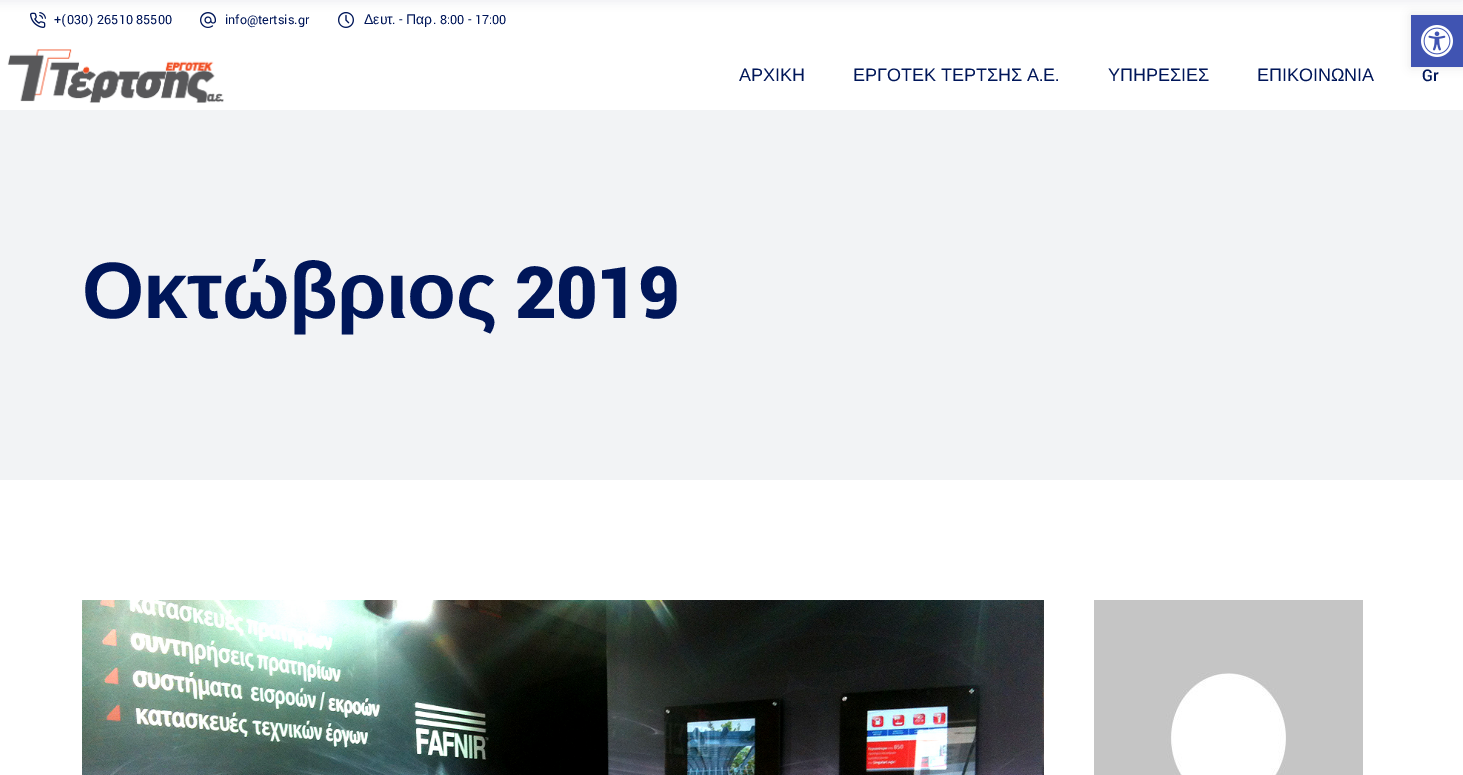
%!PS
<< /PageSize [1463 775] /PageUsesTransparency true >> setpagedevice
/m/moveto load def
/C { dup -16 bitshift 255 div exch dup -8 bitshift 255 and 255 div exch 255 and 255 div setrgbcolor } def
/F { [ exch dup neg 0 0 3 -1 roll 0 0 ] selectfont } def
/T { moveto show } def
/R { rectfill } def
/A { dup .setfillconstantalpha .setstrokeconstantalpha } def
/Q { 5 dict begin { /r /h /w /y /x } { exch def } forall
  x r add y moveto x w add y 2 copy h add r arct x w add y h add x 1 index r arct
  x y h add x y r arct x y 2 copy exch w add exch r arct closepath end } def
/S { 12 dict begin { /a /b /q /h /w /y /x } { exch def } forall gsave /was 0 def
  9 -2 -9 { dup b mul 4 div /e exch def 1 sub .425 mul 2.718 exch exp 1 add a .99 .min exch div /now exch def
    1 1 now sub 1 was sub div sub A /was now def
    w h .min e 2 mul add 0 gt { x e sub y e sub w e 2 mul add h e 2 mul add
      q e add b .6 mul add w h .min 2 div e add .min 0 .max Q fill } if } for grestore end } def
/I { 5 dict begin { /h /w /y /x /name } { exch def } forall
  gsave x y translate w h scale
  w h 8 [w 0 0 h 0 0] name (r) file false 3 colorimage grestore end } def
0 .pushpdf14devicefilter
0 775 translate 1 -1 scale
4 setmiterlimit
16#FFFFFF C
0 0 1463 775 R
16#000000 C
1411 15 52 52 0 5 .1 S
(2.rgb) 30 12 16 16 I
(3.rgb) 200 12 16 16 I
(4.rgb) 338 12 16 16 I
16#263B62 C
-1 -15 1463 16 0 5 .1 S
16#4054B2 C
1411 15 52 52 R
(1.rgb) 1421 25 32 32 I
/Yantramanav-Regular 14 F
16#001659 C
(+\(030\) 26510 85500) 54 24 T
(info@tertsis.gr) 225 24 T
/LiberationSans-Regular 14 F
(Δευτ) 364 24 T
/Yantramanav-Regular 14 F
(. -) 392 24 T
/LiberationSans-Regular 14 F
(Παρ) 406 24 T
/Yantramanav-Regular 14 F
(. 8:00 - 17:00) 433 24 T
(5.rgb) 7 49 217 54 I
/LiberationSans-Regular 18 F
(ΑΡΧΙΚΗ) 739 81 T
(ΕΡΓΟΤΕΚ ΤΕΡΤΣΗΣ Α) 853 81 T
/Yantramanav-Medium 18 F
(.) 1039 81 T
/LiberationSans-Regular 18 F
(Ε) 1043 81 T
/Yantramanav-Medium 18 F
(.) 1055 81 T
/LiberationSans-Regular 18 F
(ΥΠΗΡΕΣΙΕΣ) 1108 81 T
(ΕΠΙΚΟΙΝΩΝΙΑ) 1257 81 T
/Yantramanav-Medium 18 F
(Gr) 1422 81 T
16#F2F3F5 C
0 110 1463 370 R
/LiberationSans-Bold 80 F
16#001659 C
82 318 m -.75 0 (Οκτώβριος) ashow
/Yantramanav-Black 80 F
515 318 m -.75 0 (2019) ashow
(6.rgb) 82 600 962 175 I
(7.rgb) 1094 600 269 175 I
.poppdf14devicefilter showpage
